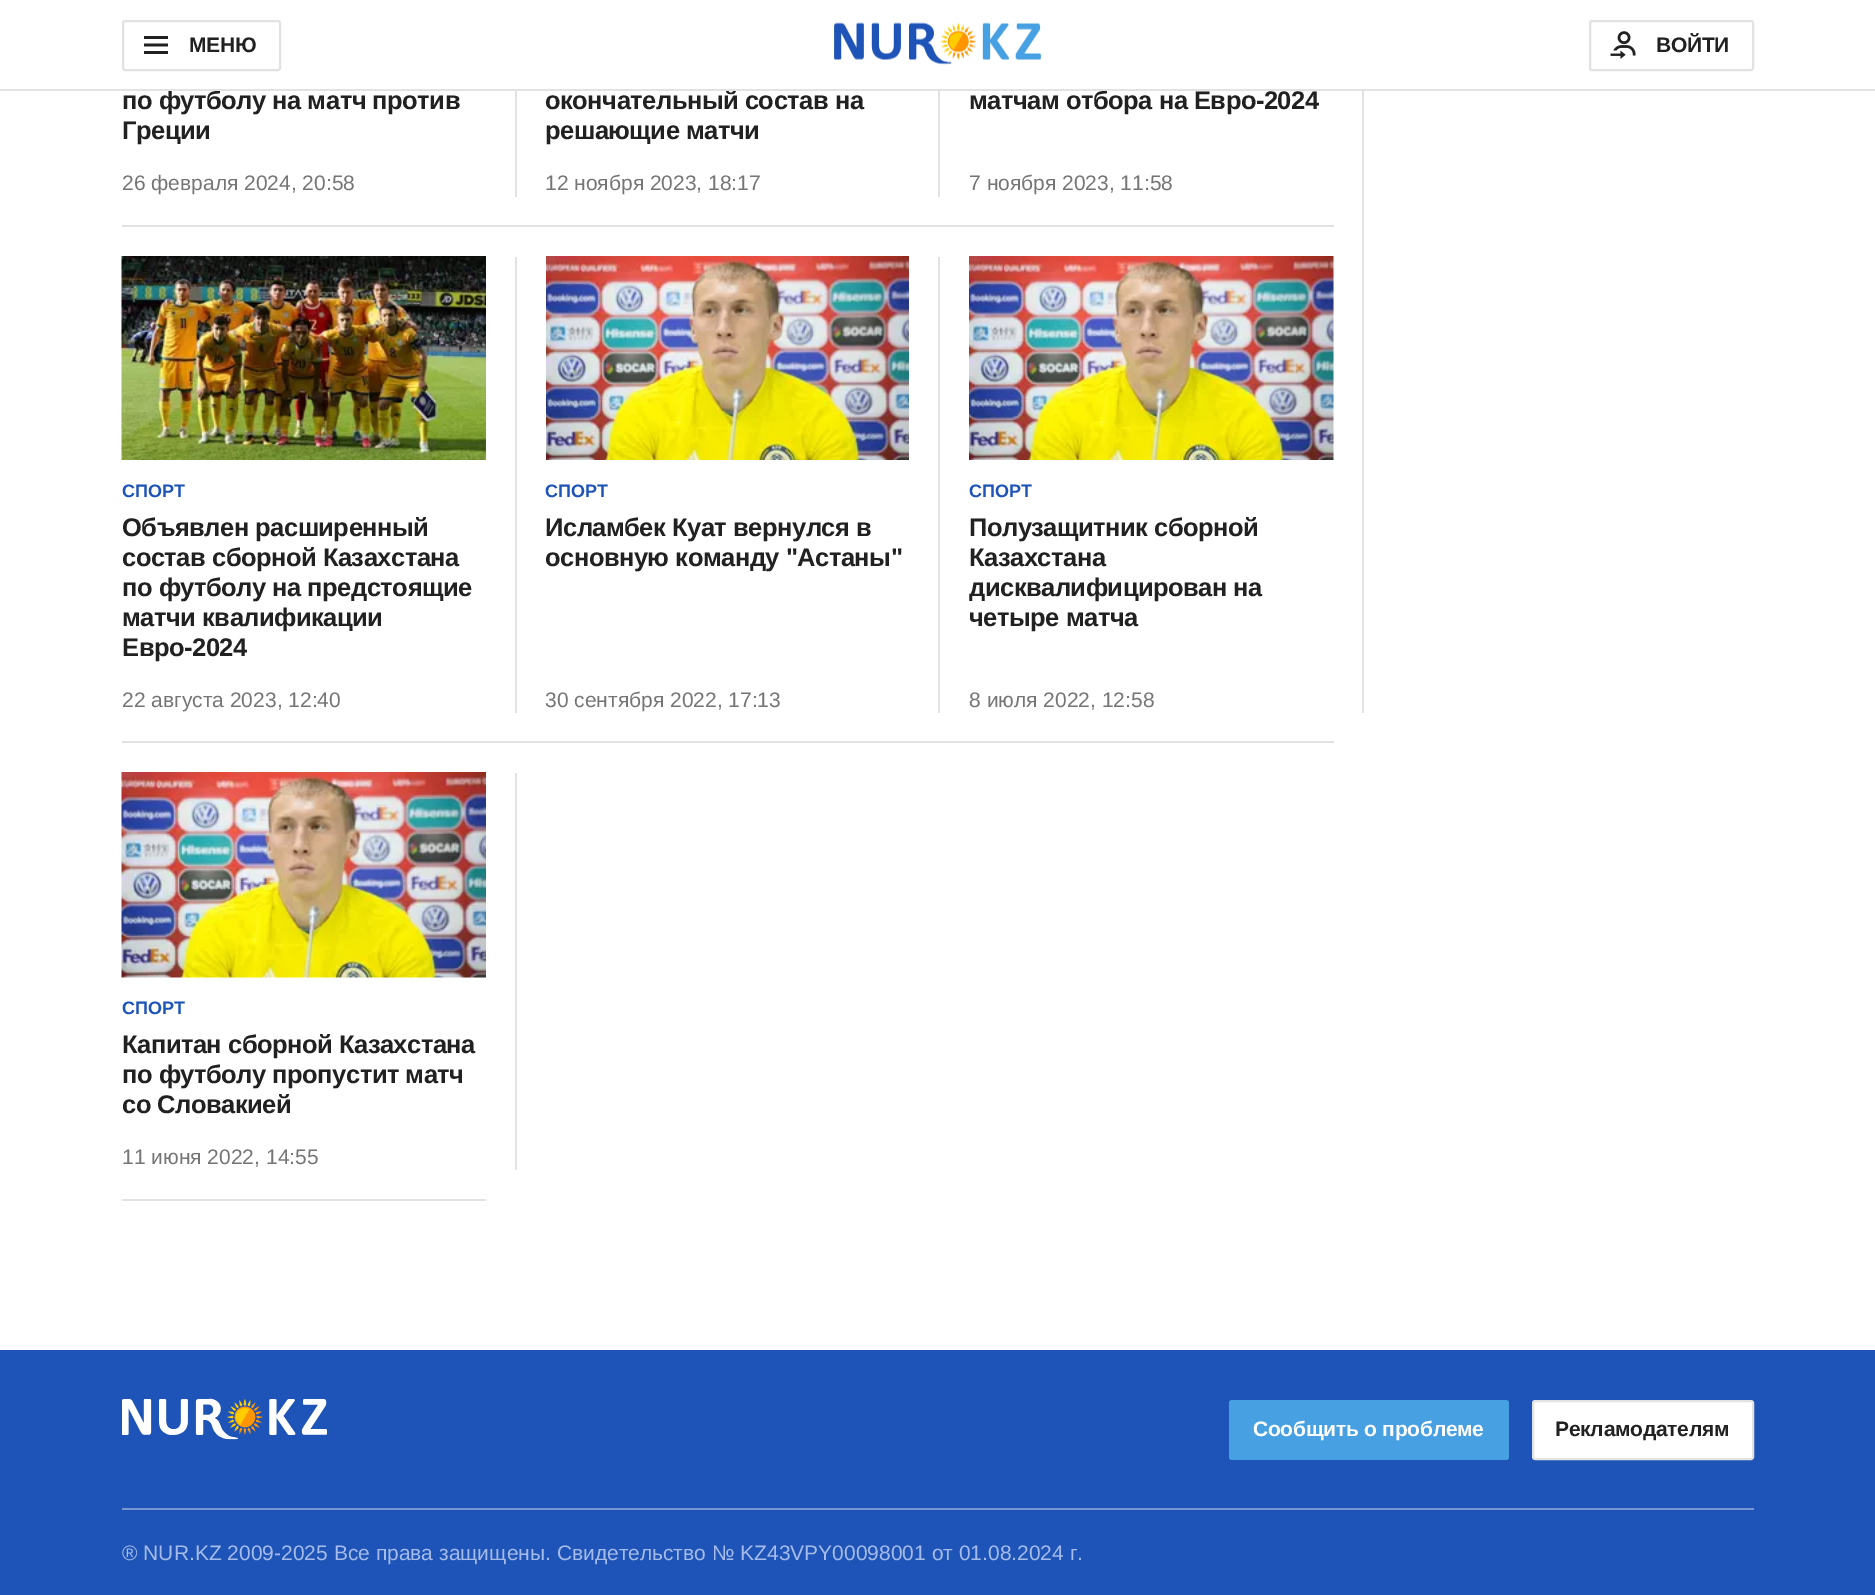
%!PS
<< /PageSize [1875 1595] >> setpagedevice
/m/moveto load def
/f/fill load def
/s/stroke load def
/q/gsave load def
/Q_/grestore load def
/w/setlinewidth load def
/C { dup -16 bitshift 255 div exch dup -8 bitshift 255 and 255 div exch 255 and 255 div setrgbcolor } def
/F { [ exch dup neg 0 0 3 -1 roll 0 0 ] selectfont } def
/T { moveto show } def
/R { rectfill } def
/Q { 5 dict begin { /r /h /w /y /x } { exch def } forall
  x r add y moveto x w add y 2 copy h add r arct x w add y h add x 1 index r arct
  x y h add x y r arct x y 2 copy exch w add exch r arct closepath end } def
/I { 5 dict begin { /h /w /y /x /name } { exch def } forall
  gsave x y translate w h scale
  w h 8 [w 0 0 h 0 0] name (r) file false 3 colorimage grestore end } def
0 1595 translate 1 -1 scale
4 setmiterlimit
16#FFFFFF C
0 0 1875 1595 R
/LiberationSans-Bold 25.5 F
16#212121 C
122 109 m -.5 0 (по футболу на матч против) ashow
545 109 m -.5 0 (окончательный состав на) ashow
969 109 m -.5 0 (матчам отбора на Евро-2024) ashow
16#E2E2E2 C
0 89 1875 2 R
2 w
123 21 157 49 2 Q s
(1.rgb) 144 36 24 18 I
/LiberationSans-Bold 21 F
16#212121 C
189 52 m -.25 0 (МЕНЮ) ashow
(2.rgb) 834 22 207 43 I
16#E2E2E2 C
1590 21 163 49 2 Q s
(3.rgb) 1610 31 26 28 I
16#212121 C
1656 52 m -.25 0 (ВОЙТИ) ashow
/LiberationSans-Bold 25.5 F
122 139 m -.5 0 (Греции) ashow
/LiberationSans-Regular 21 F
16#757575 C
(26 февраля 2024, 20:58) 122 190 T
16#E2E2E2 C
515 91 2 106 R
122 225 1212 2 R
/LiberationSans-Bold 25.5 F
16#212121 C
545 139 m -.5 0 (решающие матчи) ashow
/LiberationSans-Regular 21 F
16#757575 C
(12 ноября 2023, 18:17) 545 190 T
16#E2E2E2 C
938 91 2 106 R
16#757575 C
(7 ноября 2023, 11:58) 969 190 T
16#E2E2E2 C
1362 91 2 622 R
(4.rgb) 121 256 365 204 I
/LiberationSans-Bold 18 F
16#1E54B7 C
(СПОРТ) 122 497 T
/LiberationSans-Bold 25.5 F
16#212121 C
122 536 m -.5 0 (Объявлен расширенный) ashow
122 566 m -.5 0 (состав сборной Казахстана) ashow
122 596 m -.5 0 (по футболу на предстоящие) ashow
122 626 m -.5 0 (матчи квалификации) ashow
122 656 m -.5 0 (Евро-2024) ashow
/LiberationSans-Regular 21 F
16#757575 C
(22 августа 2023, 12:40) 122 707 T
16#E2E2E2 C
515 257 2 456 R
122 741 1212 2 R
(5.rgb) 546 256 363 204 I
/LiberationSans-Bold 18 F
16#1E54B7 C
(СПОРТ) 545 497 T
/LiberationSans-Bold 25.5 F
16#212121 C
545 536 m -.5 0 (Исламбек Куат вернулся в) ashow
545 566 m -.5 0 (основную команду "Астаны") ashow
/LiberationSans-Regular 21 F
16#757575 C
(30 сентября 2022, 17:13) 545 707 T
16#E2E2E2 C
938 257 2 456 R
(6.rgb) 969 256 365 204 I
/LiberationSans-Bold 18 F
16#1E54B7 C
(СПОРТ) 969 497 T
/LiberationSans-Bold 25.5 F
16#212121 C
969 536 m -.5 0 (Полузащитник сборной) ashow
969 566 m -.5 0 (Казахстана) ashow
969 596 m -.5 0 (дисквалифицирован на) ashow
969 626 m -.5 0 (четыре матча) ashow
/LiberationSans-Regular 21 F
16#757575 C
(8 июля 2022, 12:58) 969 707 T
(7.rgb) 121 772 365 206 I
/LiberationSans-Bold 18 F
16#1E54B7 C
(СПОРТ) 122 1014 T
/LiberationSans-Bold 25.5 F
16#212121 C
122 1053 m -.5 0 (Капитан сборной Казахстана) ashow
122 1083 m -.5 0 (по футболу пропустит матч) ashow
122 1113 m -.5 0 (со Словакией) ashow
/LiberationSans-Regular 21 F
16#757575 C
(11 июня 2022, 14:55) 122 1164 T
16#E2E2E2 C
515 773 2 397 R
122 1199 364 2 R
16#1E54B7 C
0 1350 1875 245 R
(8.rgb) 122 1398 205 42 I
16#47A0E2 C
1229 1400 280 60 3 Q f
/LiberationSans-Bold 21 F
16#FFFFFF C
1253 1436 m -.25 0 (Сообщить о проблеме) ashow
1533 1401 220 58 2 Q q f Q_
16#E2E2E2 C
s
16#212121 C
1555 1436 m -.25 0 (Рекламодателям) ashow
16#7898D2 C
122 1508 1632 2 R
/LiberationSans-Regular 21 F
16#A5BBE9 C
(® NUR.KZ 2009-2025 Все права защищены. Свидетельство № KZ43VPY00098001 от 01.08.2024 г.) 122 1560 T
showpage
